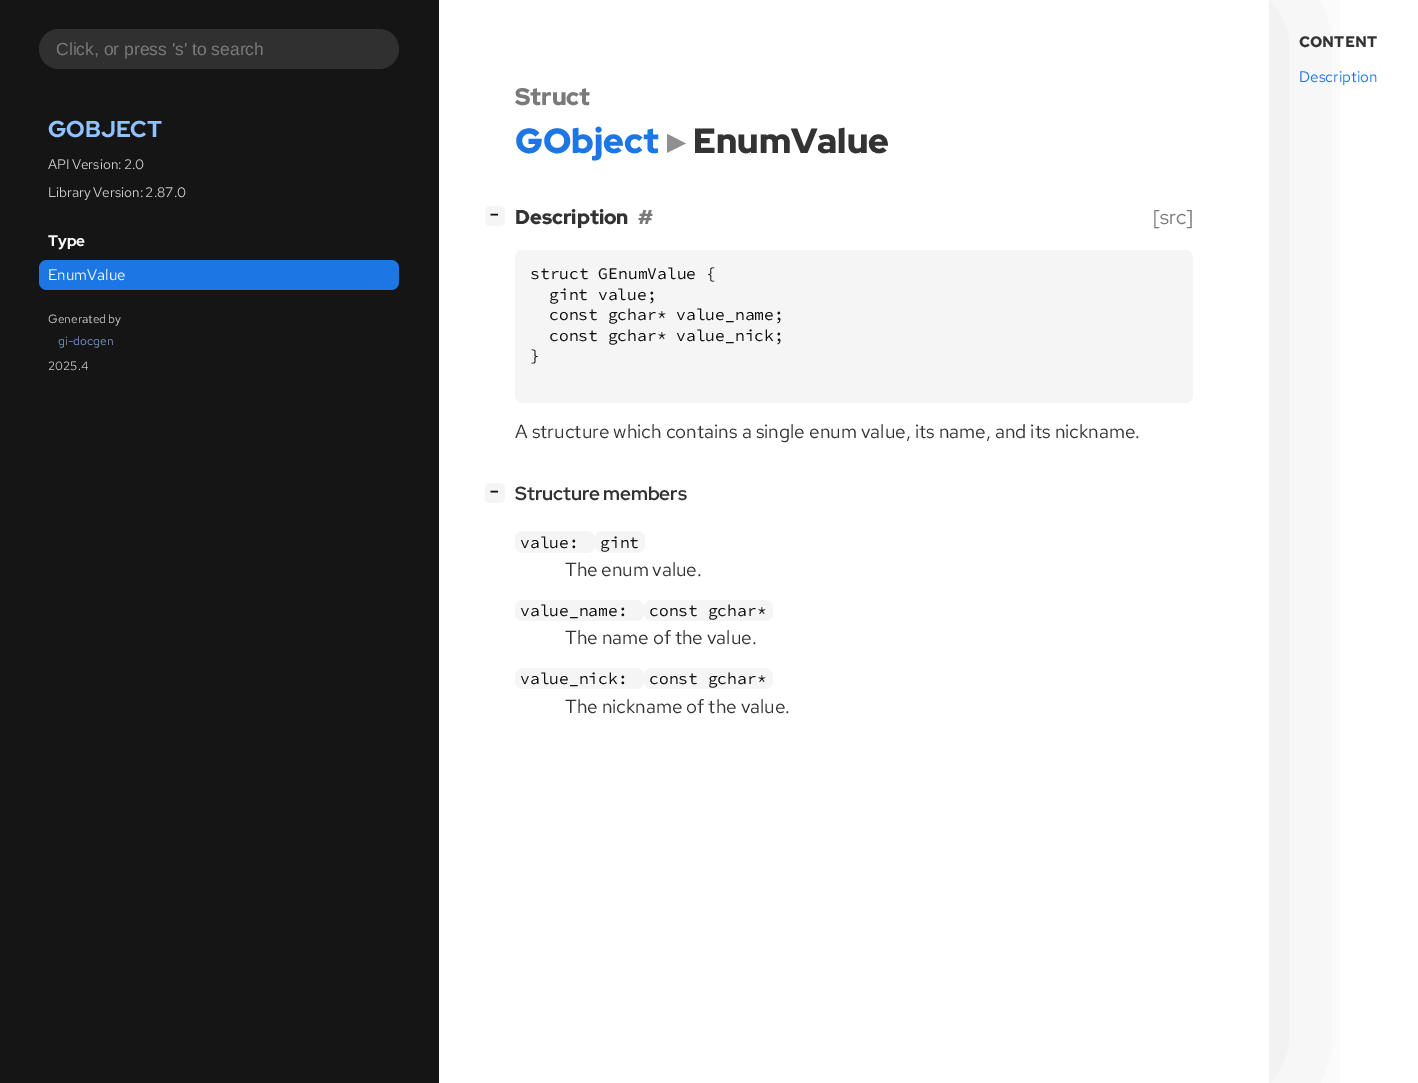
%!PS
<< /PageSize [1418 1083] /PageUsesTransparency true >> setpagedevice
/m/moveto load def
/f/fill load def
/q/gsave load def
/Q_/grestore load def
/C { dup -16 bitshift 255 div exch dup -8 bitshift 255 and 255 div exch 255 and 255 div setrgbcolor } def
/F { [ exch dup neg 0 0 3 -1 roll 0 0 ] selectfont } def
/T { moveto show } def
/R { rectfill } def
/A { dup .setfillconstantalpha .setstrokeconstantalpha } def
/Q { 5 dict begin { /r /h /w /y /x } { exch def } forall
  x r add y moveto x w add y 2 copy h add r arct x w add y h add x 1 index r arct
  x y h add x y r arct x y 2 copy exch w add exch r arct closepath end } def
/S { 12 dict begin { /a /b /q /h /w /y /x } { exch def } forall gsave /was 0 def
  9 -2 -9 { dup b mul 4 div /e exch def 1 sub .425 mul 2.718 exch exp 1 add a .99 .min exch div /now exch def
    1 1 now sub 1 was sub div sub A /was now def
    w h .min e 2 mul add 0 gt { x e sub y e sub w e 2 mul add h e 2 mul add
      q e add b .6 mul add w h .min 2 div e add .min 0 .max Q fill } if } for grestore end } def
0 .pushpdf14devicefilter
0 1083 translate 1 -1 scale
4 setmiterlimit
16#FFFFFF C
0 0 1418 1083 R
q
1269 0 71 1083 rectclip
16#000000 C
439 0 830 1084 0 84 .1 S
Q_
16#151515 C
0 0 439 1083 R
16#303030 C
39 29 360 40 20 Q f
/LiberationSans-Regular 17.5 F
16#7A7A7A C
(Click, or press 's' to search) 56 55 T
/RedHatDisplay-ExtraBold 23 F
16#90C2FF C
(GOBJECT) 48 137 T
/RedHatText-Regular 13.75 F
16#CCCCCC C
48 169 m -1 0 32 (API Version: 2.0) widthshow
48 197 m -1 0 32 (Library Version: 2.87.0) widthshow
/RedHatDisplay-ExtraBold 15.25 F
16#FAFAFA C
(Type) 48 246 T
16#1C76E4 C
39 260 360 30 8 Q f
/RedHatText-Regular 15.25 F
16#FAFAFA C
(EnumValue) 48 280 T
/RedHatText-Regular 12 F
16#CCCCCC C
48 323 m -1 0 32 (Generated by) widthshow
16#779FD0 C
(gi-docgen) 58 345 T
16#CCCCCC C
(2025.4) 48 370 T
/RedHatDisplay-Black 24 F
16#7A7A7A C
(Struct) 515 105 T
/RedHatDisplay-Black 35 F
16#1C76E4 C
(GObject) 515 153 T
/DejaVuSans-Bold 35 F
16#8F8F8F C
(▸) 667 153 T
/RedHatDisplay-Black 35 F
16#333333 C
(EnumValue) 693 153 T
16#F5F5F5 C
485 206 20 20 5 Q f
/DejaVuSansMono-Bold 14 F
16#111111 C
(−) 490 219 T
/RedHatDisplay-Black 20 F
16#333333 C
(Description) 515 224 T
16#7A7A7A C
(#) 638 224 T
/RedHatDisplay-Regular 20 F
([src]) 1153 224 T
16#F5F5F5 C
515 250 678 153 8 Q f
/SourceCodePro-Regular 16.3 F
16#111111 C
(struct GEnumValue {) 530 279 T
(gint value;) 549 300 T
(const gchar* value_name;) 549 320 T
(const gchar* value_nick;) 549 341 T
q
530 265 648 101 8 Q clip newpath
(}) 530 361 T
Q_
/RedHatText-Regular 19 F
16#333333 C
515 438 m -.25 0 32 (A structure which contains a single enum value, its name, and its nickname.) widthshow
16#F5F5F5 C
485 483 20 20 5 Q f
/DejaVuSansMono-Bold 14 F
16#111111 C
(−) 490 496 T
/RedHatDisplay-Bold 19 F
16#333333 C
515 500 m -1 0 32 (Structure members) widthshow
16#F5F5F5 C
515 531 80 22 8 Q f
/SourceCodePro-Regular 16.3 F
16#111111 C
(value:) 520 548 T
16#F5F5F5 C
595 531 50 22 8 Q f
16#111111 C
(gint) 600 548 T
/RedHatText-Regular 19 F
16#333333 C
565 576 m -1 0 32 (The enum value.) widthshow
16#F5F5F5 C
515 600 129 21 8 Q f
/SourceCodePro-Regular 16.3 F
16#111111 C
(value_name:) 520 616 T
16#F5F5F5 C
644 600 129 21 8 Q f
16#111111 C
(const gchar*) 649 616 T
/RedHatText-Regular 19 F
16#333333 C
565 644 m -.5 0 32 (The name of the value.) widthshow
16#F5F5F5 C
515 668 129 21 8 Q f
/SourceCodePro-Regular 16.3 F
16#111111 C
(value_nick:) 520 684 T
16#F5F5F5 C
644 668 129 21 8 Q f
16#111111 C
(const gchar*) 649 684 T
/RedHatText-Regular 19 F
16#333333 C
565 713 m -.5 0 32 (The nickname of the value.) widthshow
/RedHatText-Bold 15.25 F
(CONTENT) 1299 47 T
/RedHatText-Regular 15.25 F
16#1C76E4 C
(Description) 1299 82 T
.poppdf14devicefilter showpage
